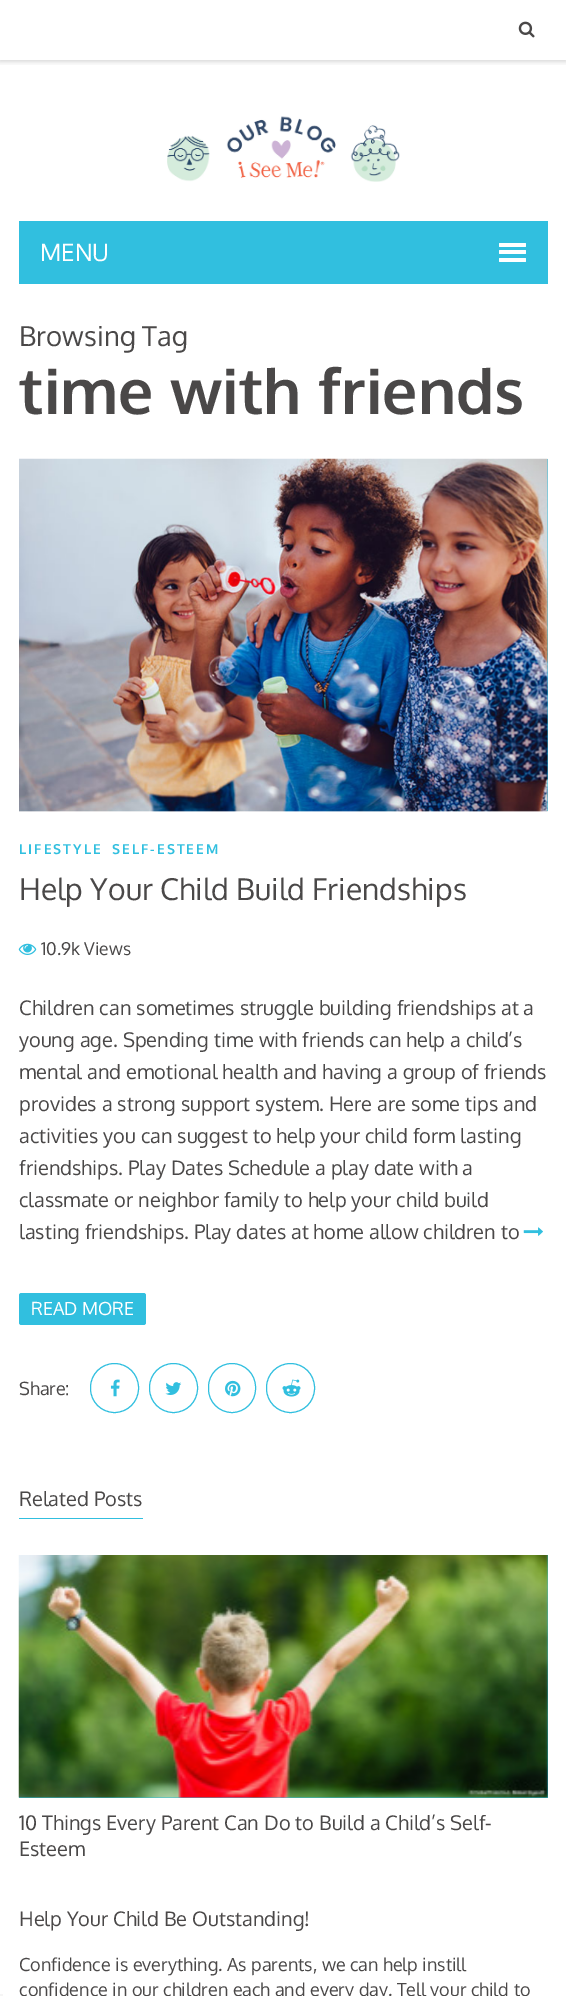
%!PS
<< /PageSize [566 1996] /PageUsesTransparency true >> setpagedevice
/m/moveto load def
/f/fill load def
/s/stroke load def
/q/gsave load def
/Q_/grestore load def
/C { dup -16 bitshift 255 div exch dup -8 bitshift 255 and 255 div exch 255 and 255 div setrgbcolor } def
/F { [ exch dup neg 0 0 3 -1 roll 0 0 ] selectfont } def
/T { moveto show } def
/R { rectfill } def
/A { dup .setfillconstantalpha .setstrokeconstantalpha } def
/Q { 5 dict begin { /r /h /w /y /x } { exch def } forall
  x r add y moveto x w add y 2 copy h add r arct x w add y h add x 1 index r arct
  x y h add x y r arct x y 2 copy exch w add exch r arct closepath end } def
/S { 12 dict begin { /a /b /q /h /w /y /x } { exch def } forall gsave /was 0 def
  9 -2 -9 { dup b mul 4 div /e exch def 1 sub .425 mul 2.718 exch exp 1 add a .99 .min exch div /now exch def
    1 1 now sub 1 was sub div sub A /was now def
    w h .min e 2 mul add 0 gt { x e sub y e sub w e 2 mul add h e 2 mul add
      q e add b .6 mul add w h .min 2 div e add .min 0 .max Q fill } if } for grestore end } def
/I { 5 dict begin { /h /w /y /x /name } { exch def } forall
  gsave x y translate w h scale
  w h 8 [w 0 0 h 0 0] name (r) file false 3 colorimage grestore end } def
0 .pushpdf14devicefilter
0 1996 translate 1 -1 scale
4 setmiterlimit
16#FFFFFF C
0 0 566 1996 R
q
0 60 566 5 rectclip
16#000000 C
0 1 566 60 0 3 .2 S
Q_
(1.rgb) 518 21 17 17 I
(2.rgb) 167 116 233 66 I
16#31BFDF C
19 221 529 63 R
/Oxygen-Regular 24 F
16#FFFFFF C
(MENU) 40 261 T
499 243 27 4 1 Q f
499 250 27 4 1 Q f
499 258 27 4 1 Q f
16#F5F5F5 C
0 1994 3 2 R
/Oxygen-Regular 27.5 F
16#4A4848 C
(Browsing Tag) 19 346 T
/Oxygen-Bold 62.5 F
(time with friends) 19 414 T
16#31BFDF C
19 459 529 352 R
(3.rgb) 19 458 529 354 I
/Oxygen-Bold 13.75 F
19 854 m 2 0 (LIFESTYLE) ashow
112 854 m 2 0 (SELF-ESTEEM) ashow
/Oxygen-Regular 30 F
16#4A4848 C
(Help Your Child Build Friendships) 19 900 T
(4.rgb) 18 943 19 12 I
/Oxygen-Regular 17.5 F
(10.9k Views) 41 955 T
/Oxygen-Regular 20 F
(Children can sometimes struggle building friendships at a) 19 1015 T
(young age. Spending time with friends can help a child’s) 19 1047 T
(mental and emotional health and having a group of friends) 19 1079 T
(provides a strong support system. Here are some tips and) 19 1111 T
(activities you can suggest to help your child form lasting) 19 1143 T
(friendships. Play Dates Schedule a play date with a) 19 1175 T
(classmate or neighbor family to help your child build) 19 1207 T
(lasting friendships. Play dates at home allow children to) 19 1239 T
(5.rgb) 523 1227 20 9 I
16#31BFDF C
19 1293 127 32 2.5 Q f
/Oxygen-Regular 18 F
16#FFFFFF C
(READ MORE) 31 1315 T
16#4A4848 C
(Share:) 19 1395 T
16#31BFDF C
90.5 1363.5 48 49 24 Q s
(6.rgb) 110 1379 10 18 I
149.5 1363.5 48 49 24 Q s
(7.rgb) 165 1382 17 13 I
208.5 1363.5 47 49 23.5 Q s
(8.rgb) 225 1380 16 17 I
266.5 1363.5 48 49 24 Q s
(9.rgb) 282 1379 19 18 I
/Oxygen-Regular 20 F
16#4A4848 C
(Related Posts) 19 1506 T
16#31BFDF C
19 1518 124 1 R
19 1555 529 243 R
(10.rgb) 18 1555 530 243 I
16#4A4848 C
(10 Things Every Parent Can Do to Build a Child’s Self-) 19 1830 T
(Esteem) 19 1856 T
(Help Your Child Be Outstanding!) 19 1926 T
/Oxygen-Regular 18 F
(Confidence is everything. As parents, we can help instill) 19 1971 T
(confidence in our children each and every day. Tell your child to) 19 1996 T
.poppdf14devicefilter showpage
